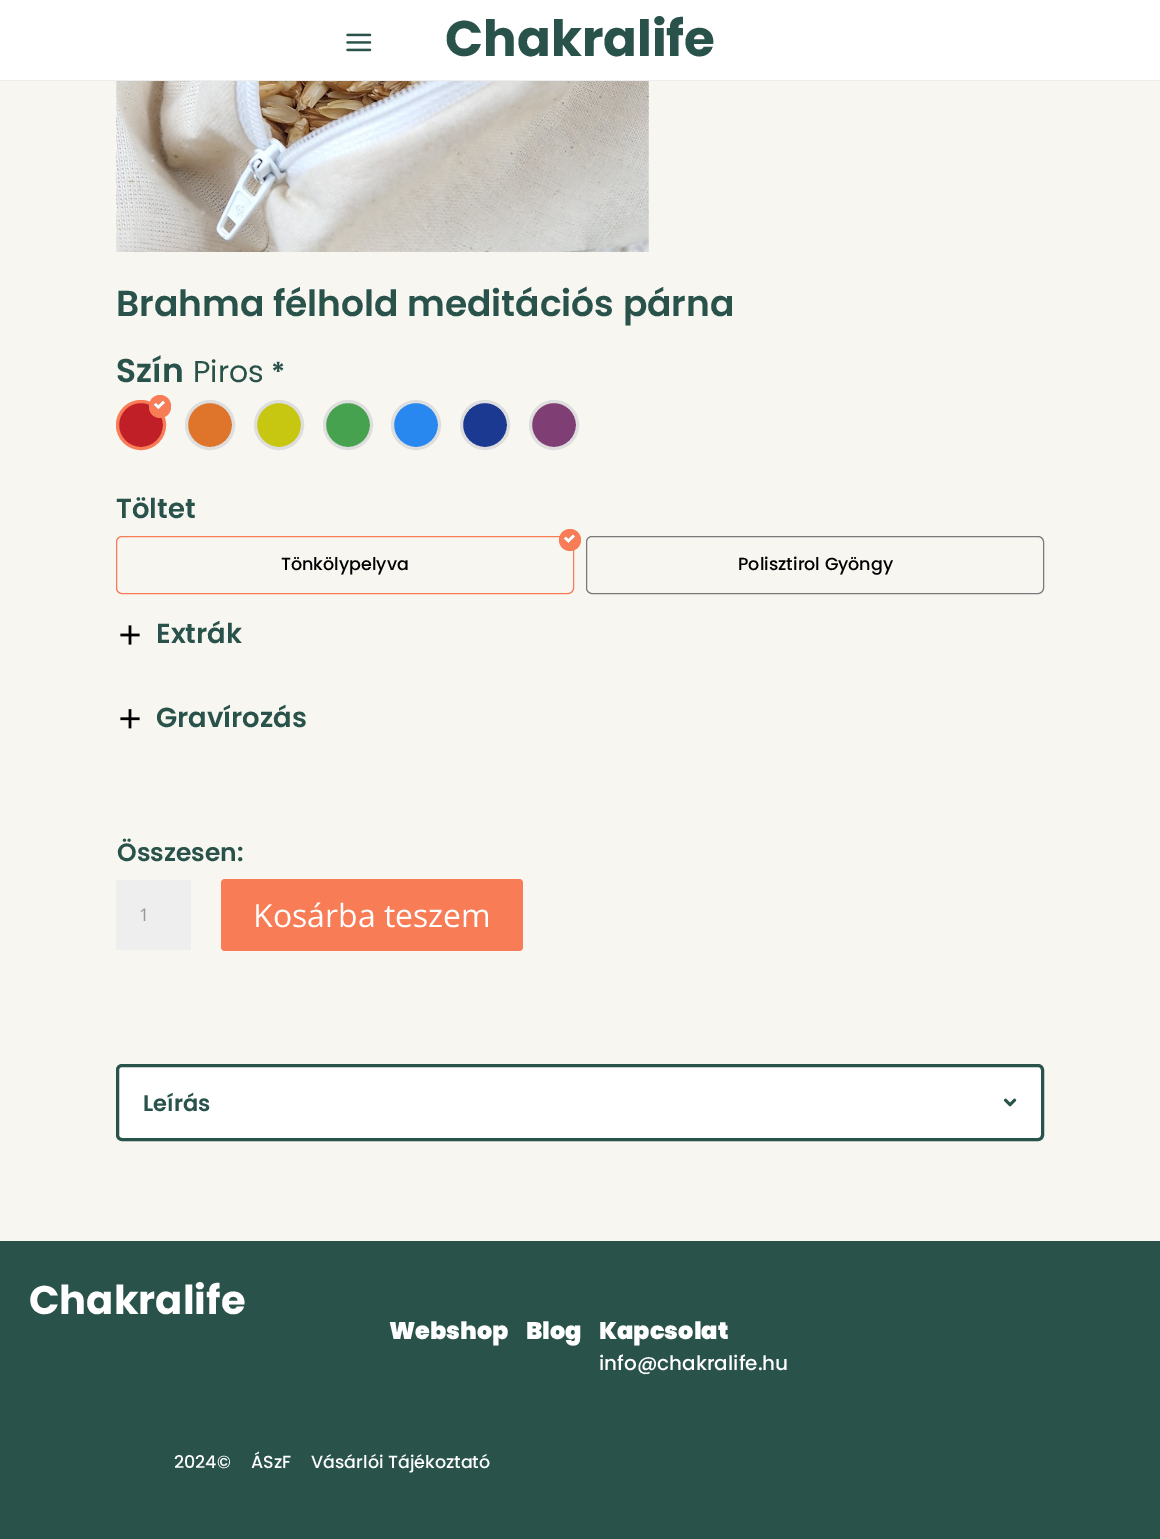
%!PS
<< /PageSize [1160 1539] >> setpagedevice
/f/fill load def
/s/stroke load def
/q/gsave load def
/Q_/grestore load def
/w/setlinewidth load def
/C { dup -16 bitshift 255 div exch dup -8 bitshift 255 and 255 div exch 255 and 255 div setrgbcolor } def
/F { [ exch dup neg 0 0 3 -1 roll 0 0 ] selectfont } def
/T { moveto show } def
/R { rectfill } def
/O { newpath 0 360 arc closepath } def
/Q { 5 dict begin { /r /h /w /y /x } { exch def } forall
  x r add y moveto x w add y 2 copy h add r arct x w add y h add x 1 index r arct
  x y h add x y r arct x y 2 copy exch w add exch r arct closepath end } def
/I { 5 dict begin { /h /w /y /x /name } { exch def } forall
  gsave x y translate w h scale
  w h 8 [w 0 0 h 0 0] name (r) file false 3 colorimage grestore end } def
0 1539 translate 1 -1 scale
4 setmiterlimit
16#F7F6F1 C
0 0 1160 1539 R
16#FFFFFF C
0 0 1160 80 R
16#EEEEEE C
0 80 1160 1 R
(1.rgb) 346 33 26 19 I
/Poppins-Bold 50 F
16#28524A C
(Chakralife) 445 56 T
(2.rgb) 116 81 533 171 I
/Poppins-SemiBold 36 F
(Brahma félhold meditációs párna) 116 316 T
/Poppins-SemiBold 33 F
(Szín) 116 382 T
/Poppins-Regular 30 F
(Piros) 193 382 T
/Poppins-SemiBold 27.5 F
(*) 271 382 T
16#C01F28 C
141 425 23.5 O q f Q_
16#F87C56 C
3 w
s
149 395 22 23 11 Q f
(3.rgb) 153 400 12 10 I
16#DF742B C
210 425 23.5 O q f Q_
16#DEDEDE C
s
16#C7C711 C
279 425 23.5 O q f Q_
16#DEDEDE C
s
16#47A24F C
348 425 23.5 O q f Q_
16#DEDEDE C
s
16#2987F0 C
416 425 23.5 O q f Q_
16#DEDEDE C
s
16#1C3991 C
485 425 23.5 O q f Q_
16#DEDEDE C
s
16#7F3E74 C
554 425 23.5 O q f Q_
16#DEDEDE C
s
16#28524A C
(Töltet) 116 518 T
16#F87C56 C
1 w
116.5 536.5 457 57 5.5 Q s
570 540 11 O f
(4.rgb) 563 534 12 10 I
/Poppins-Medium 17.5 F
16#000000 C
(Tönkölypelyva) 281 570 T
16#7A7A7A C
586.5 536.5 457 57 5.5 Q s
16#000000 C
(Polisztirol Gyöngy) 738 570 T
(5.rgb) 120 625 20 20 I
/Poppins-SemiBold 27.5 F
16#28524A C
(Extrák) 156 643 T
(6.rgb) 120 709 20 20 I
(Gravírozás) 156 727 T
/Poppins-SemiBold 25 F
(Összesen:) 117 861 T
16#EEEEEE C
116 880 75 70 R
/OpenSans-Regular 17.5 F
16#999999 C
(1) 139 921 T
16#F87C56 C
221 879 302 72 4 Q f
/OpenSans-Regular 32 F
16#FFFFFF C
(Kosárba teszem) 253 927 T
117.5 1065.5 925 74 4.5 Q q f Q_
16#28524A C
3 w
s
/Poppins-SemiBold 22.5 F
(Leírás) 143 1111 T
(7.rgb) 1003 1098 14 9 I
0 1241 1160 298 R
/Poppins-Bold 40 F
16#FFFFFF C
(Chakralife) 29 1314 T
/Poppins-Black 24 F
(Webshop) 389 1339 T
(Blog) 526 1339 T
(Kapcsolat) 599 1339 T
/Poppins-Medium 20 F
(info@chakralife.hu) 599 1370 T
/Poppins-Medium 17.5 F
(2024©) 174 1468 T
(ÁSzF) 251 1468 T
(Vásárlói Tájékoztató) 311 1468 T
showpage
